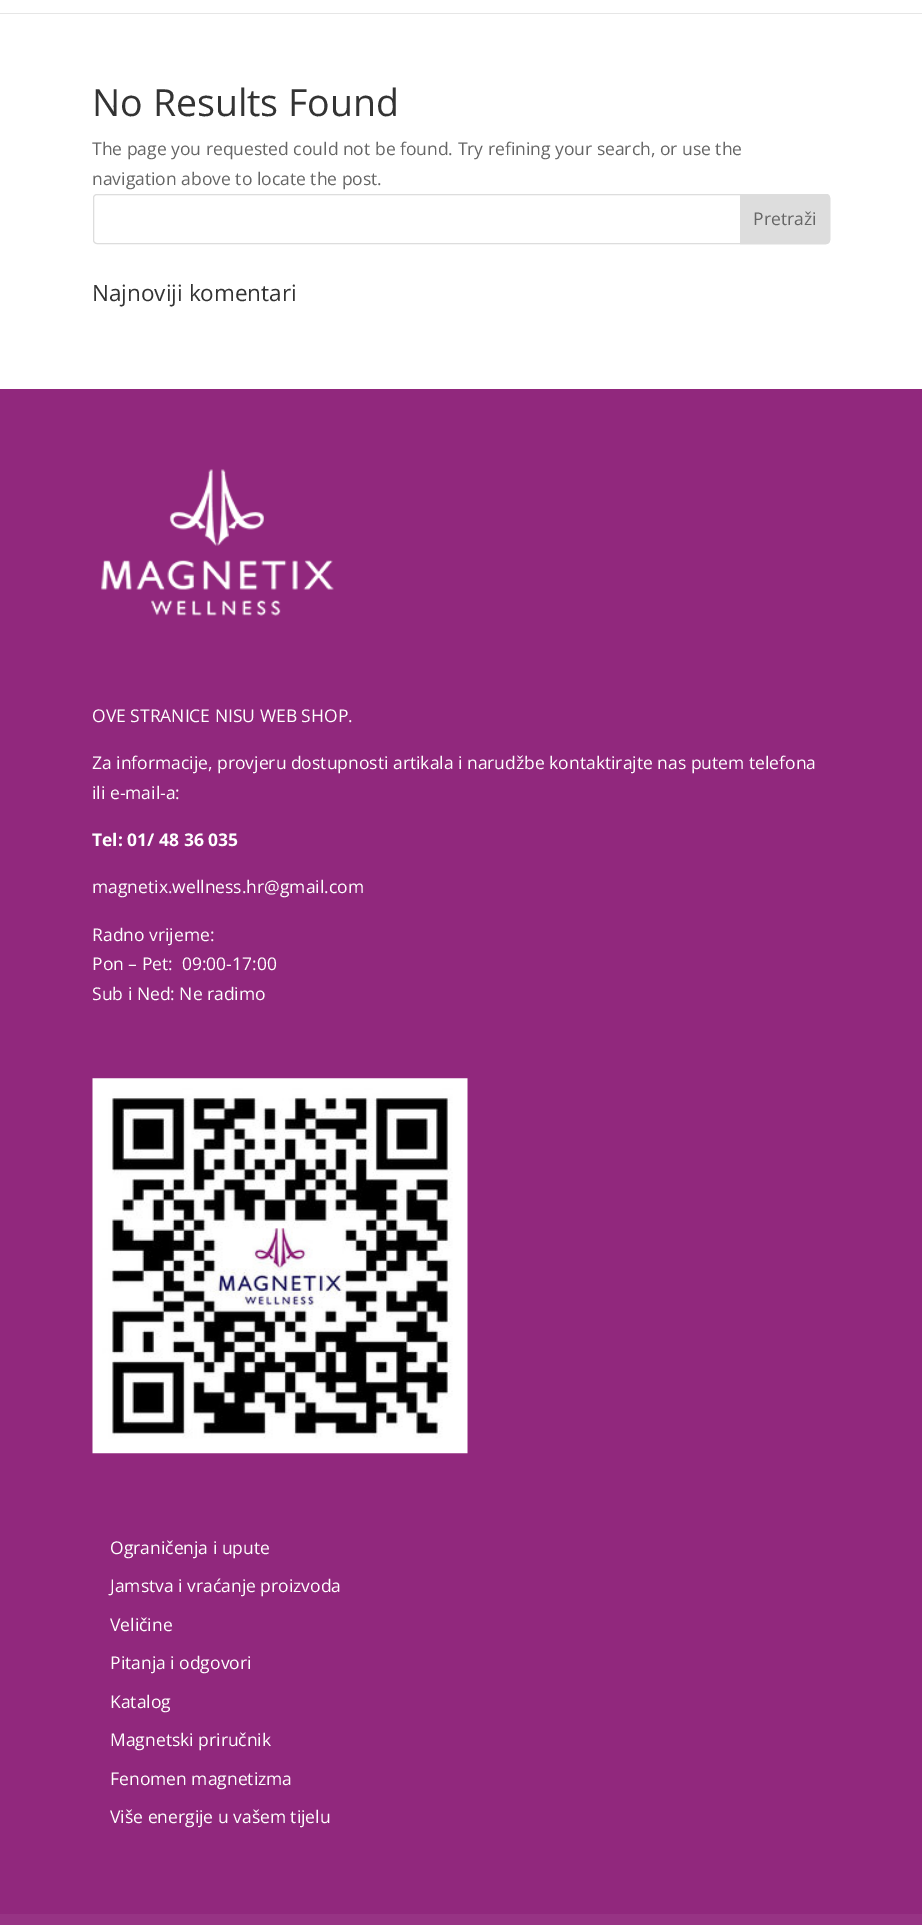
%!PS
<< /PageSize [922 1925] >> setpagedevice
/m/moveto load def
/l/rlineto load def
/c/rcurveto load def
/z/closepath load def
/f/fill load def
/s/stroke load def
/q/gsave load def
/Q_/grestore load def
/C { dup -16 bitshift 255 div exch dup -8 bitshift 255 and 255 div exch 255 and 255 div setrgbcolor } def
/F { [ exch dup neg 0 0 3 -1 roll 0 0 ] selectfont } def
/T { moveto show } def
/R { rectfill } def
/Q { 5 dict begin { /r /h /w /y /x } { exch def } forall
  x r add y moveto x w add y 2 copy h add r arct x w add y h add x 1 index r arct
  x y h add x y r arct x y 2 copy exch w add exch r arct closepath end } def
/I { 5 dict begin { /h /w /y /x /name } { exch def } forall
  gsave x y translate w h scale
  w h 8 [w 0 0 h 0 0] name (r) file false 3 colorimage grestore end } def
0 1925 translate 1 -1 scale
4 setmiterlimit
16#FFFFFF C
0 0 922 1925 R
16#E6E6E6 C
0 12 m 0 2 l 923 0 l 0 -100 l -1 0 l 0 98 l z f
16#FFFFFF C
0 12 922 1 R
/OpenSans-Regular 37.5 F
16#333333 C
(No Results Found) 92 116 T
/OpenSans-Regular 17.5 F
16#666666 C
(The page you requested could not be found. Try refining your search, or use the) 92 155 T
(navigation above to locate the post.) 92 185 T
16#DDDDDD C
93.5 194.5 736 49 3.5 Q s
740.5 194.5 m 85.5 0 l 2 0 3.5 1.5 3.5 3.5 c 0 42 l 0 2 -1.5 3.5 -3.5 3.5 c -85.5 0 l z q f Q_
s
16#666666 C
(Pretraži) 753 225 T
/OpenSans-Regular 22.5 F
16#333333 C
(Najnoviji komentari) 92 301 T
16#91287D C
0 389 922 1525 R
(1.rgb) 101 469 233 147 I
/OpenSans-Regular 17.5 F
16#FFFFFF C
(OVE STRANICE NISU WEB SHOP.) 92 722 T
(Za informacije, provjeru dostupnosti artikala i narudžbe kontaktirajte nas putem telefona) 92 769 T
(ili e-mail-a:) 92 799 T
/OpenSans-Bold 17.5 F
(Tel: 01/ 48 36 035) 92 846 T
/OpenSans-Regular 17.5 F
(magnetix.wellness.hr@gmail.com) 92 893 T
(Radno vrijeme:) 92 941 T
(Pon – Pet:  09:00-17:00) 92 970 T
(Sub i Ned: Ne radimo) 92 1000 T
(2.rgb) 92 1078 376 376 I
(Ograničenja i upute) 110 1554 T
(Jamstva i vraćanje proizvoda) 110 1592 T
(Veličine) 110 1631 T
(Pitanja i odgovori) 110 1669 T
(Katalog) 110 1708 T
(Magnetski priručnik) 110 1746 T
(Fenomen magnetizma) 110 1785 T
(Više energije u vašem tijelu) 110 1823 T
16#973384 C
0 1914 922 11 R
showpage
